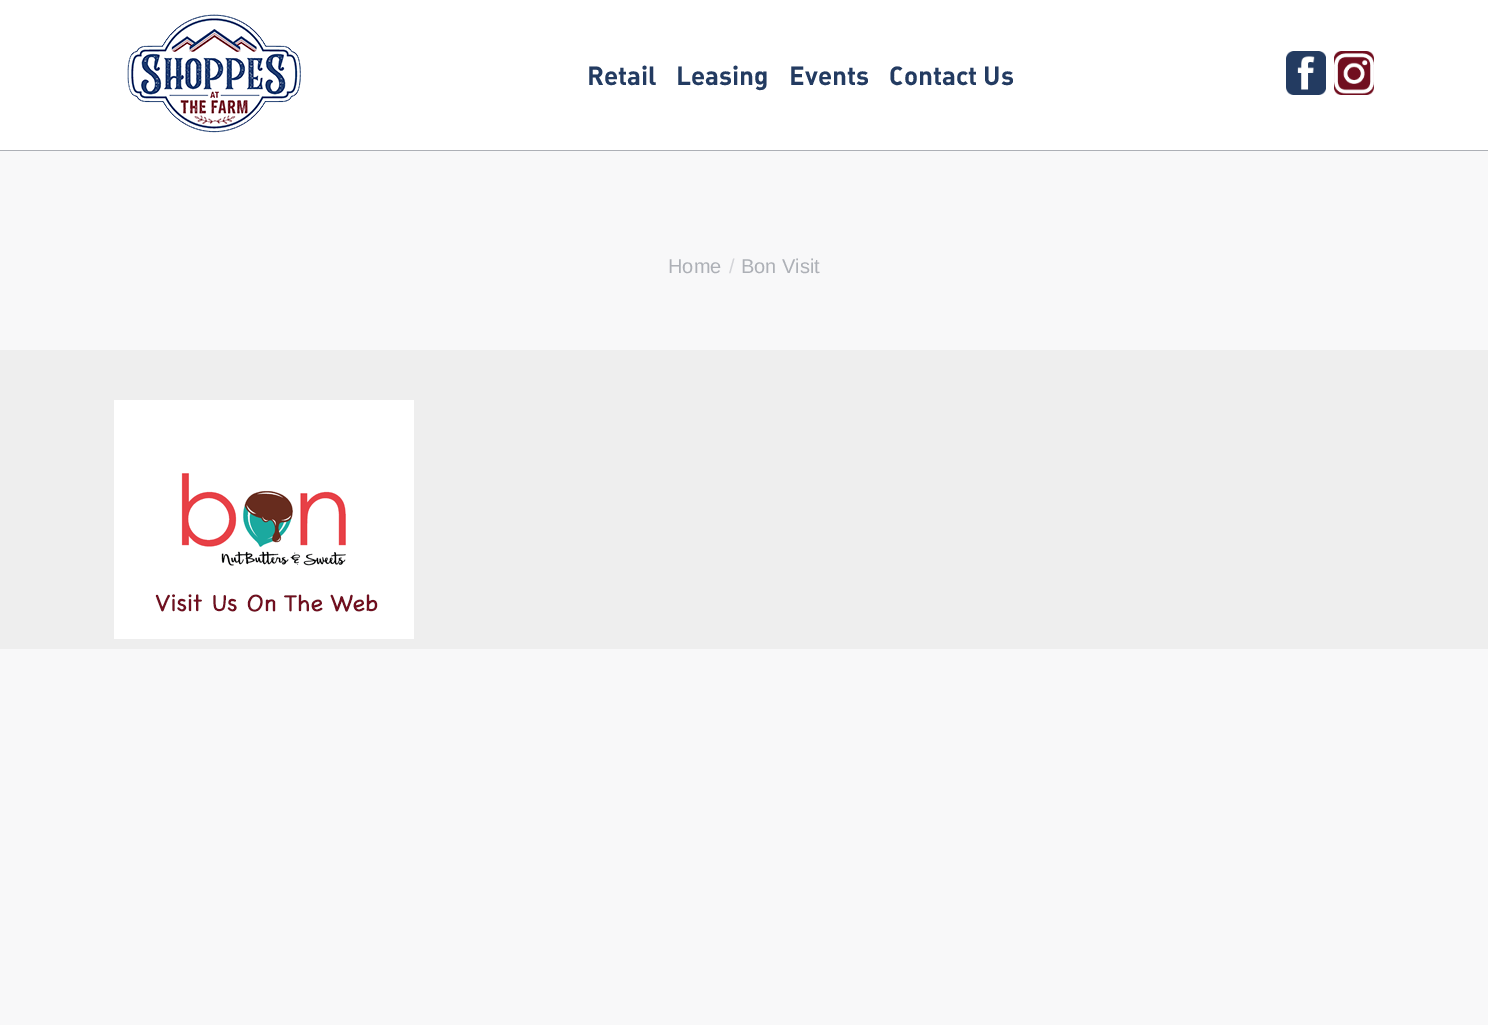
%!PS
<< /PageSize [1488 1025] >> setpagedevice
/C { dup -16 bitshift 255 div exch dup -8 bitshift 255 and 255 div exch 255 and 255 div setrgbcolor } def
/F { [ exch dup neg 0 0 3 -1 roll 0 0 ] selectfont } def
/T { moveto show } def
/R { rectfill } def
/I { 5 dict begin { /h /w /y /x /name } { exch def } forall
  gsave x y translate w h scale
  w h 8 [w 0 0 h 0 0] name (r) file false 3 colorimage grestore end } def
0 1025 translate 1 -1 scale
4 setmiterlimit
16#F8F8F9 C
0 0 1488 1025 R
16#EEEEEE C
0 350 1488 299 R
16#FFFFFF C
0 0 1488 150 R
16#ADB0B6 C
0 150 1488 1 R
(1.rgb) 127 14 174 119 I
/DIN-Bold 26 F
16#233B61 C
(Retail) 587 85 T
(Leasing) 676 85 T
(Events) 789 85 T
(Contact Us) 889 85 T
(2.rgb) 1286 51 40 44 I
(3.rgb) 1334 51 40 44 I
/LiberationSans-Regular 20 F
16#ADB0B6 C
(Home) 668 273 T
16#D3D4D8 C
(/) 729 273 T
16#ADB0B6 C
(Bon Visit) 741 273 T
(4.rgb) 114 400 300 239 I
showpage
